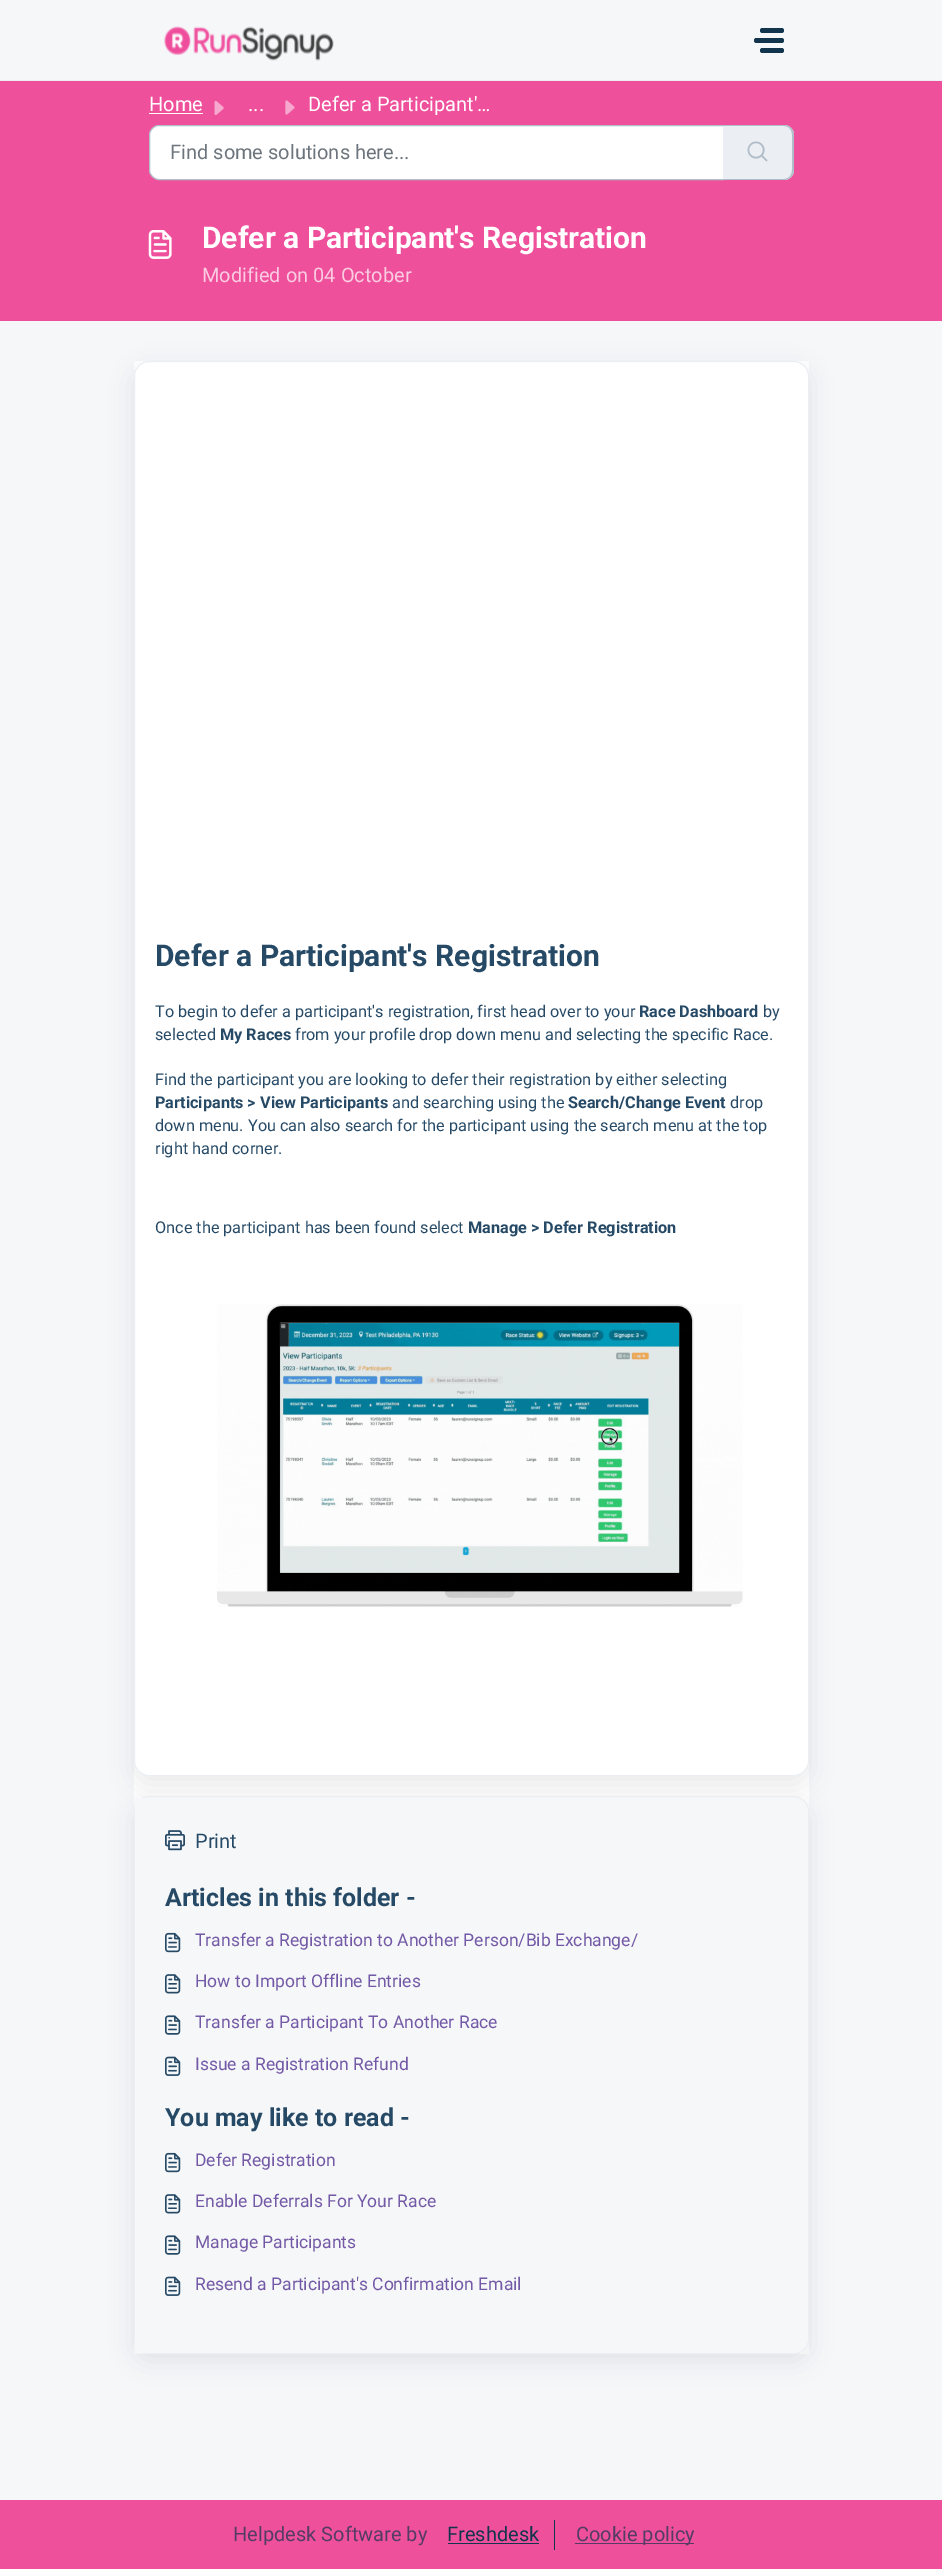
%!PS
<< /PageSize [942 2569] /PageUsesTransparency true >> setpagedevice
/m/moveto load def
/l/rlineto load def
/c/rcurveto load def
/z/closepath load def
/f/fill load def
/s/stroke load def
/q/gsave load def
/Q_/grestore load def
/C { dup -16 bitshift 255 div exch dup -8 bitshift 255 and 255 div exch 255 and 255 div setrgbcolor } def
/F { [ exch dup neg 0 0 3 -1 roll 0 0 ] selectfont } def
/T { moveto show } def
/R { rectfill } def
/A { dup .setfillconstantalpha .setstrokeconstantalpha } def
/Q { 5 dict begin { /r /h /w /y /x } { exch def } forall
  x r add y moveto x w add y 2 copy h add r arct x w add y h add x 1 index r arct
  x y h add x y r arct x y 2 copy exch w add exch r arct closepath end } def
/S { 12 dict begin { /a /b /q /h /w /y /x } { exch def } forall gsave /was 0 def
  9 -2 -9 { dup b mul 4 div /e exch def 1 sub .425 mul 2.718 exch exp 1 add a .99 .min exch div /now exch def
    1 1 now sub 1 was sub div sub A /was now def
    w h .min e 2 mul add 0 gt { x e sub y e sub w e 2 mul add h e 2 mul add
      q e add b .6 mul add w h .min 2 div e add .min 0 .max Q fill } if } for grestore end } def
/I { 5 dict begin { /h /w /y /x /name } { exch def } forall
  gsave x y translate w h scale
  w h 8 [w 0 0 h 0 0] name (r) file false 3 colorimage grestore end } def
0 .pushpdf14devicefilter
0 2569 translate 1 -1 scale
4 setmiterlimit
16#F5F7F9 C
0 0 942 2569 R
16#EBEFF3 C
0 80 942 1 R
(1.rgb) 164 26 170 35 I
16#12344D C
760 28 24 5 2.5 Q f
754 38 30 5 2.5 Q f
760 48 24 5 2.5 Q f
16#EF509C C
0 81 942 240 R
/Roboto-Regular 20 F
16#FFFFFF C
(Home) 149 111 T
149 113 54 1 R
(2.rgb) 214 100 10 15 I
(...) 248 111 T
(3.rgb) 285 100 10 15 I
(Defer a Participant'…) 308 111 T
159 125.5 m 564.5 0 l 0 54 l -564.5 0 l -5 0 -9.5 -4.5 -9.5 -9.5 c 0 -35 l 0 -5 4.5 -9.5 9.5 -9.5 c z q f Q_
16#B1BDC8 C
s
16#6C757D C
(Find some solutions here...) 170 159 T
16#EBEFF3 C
723 125 m 61 0 l 5.5 0 10 4.5 10 10 c 0 35 l 0 5.5 -4.5 10 -10 10 c -61 0 l z f
16#B1BDC8 C
722 125 m 62 0 l 5 0 10 4 10 10 c 0 35 l 0 6 -5 10 -10 10 c -62 0 l z 722 126 m 62 0 l 5 0 8 4 8 9 c 0 35 l 0 5 -3 9 -8 9 c -62 0 l z eofill
(4.rgb) 747 141 21 21 I
(5.rgb) 148 230 24 29 I
/Roboto-Bold 30 F
16#FFFFFF C
(Defer a Participant's Registration) 202 248 T
/Roboto-Regular 20 F
16#FACBE1 C
(Modified on 04 October) 202 282 T
16#FFFFFF C
134 361 675 1993 R
q
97 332 m 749 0 l 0 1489 l -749 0 l z 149 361 m 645 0 l 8.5 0 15 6.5 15 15 c 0 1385 l 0 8.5 -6.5 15 -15 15 c -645 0 l -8.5 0 -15 -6.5 -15 -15 c 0 -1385 l 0 -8.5 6.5 -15 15 -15 c z eoclip newpath
16#27313A C
134 369 675 1415 15 12 .1 S
Q_
16#EBEFF3 C
134.5 361.5 674 1414 14.5 Q s
/Roboto-Bold 30 F
16#264966 C
(Defer a Participant's Registration) 155 966 T
/Roboto-Regular 16.25 F
(To begin to defer a participant's registration, first head over to your) 155 1017 T
/Roboto-Bold 16.25 F
(Race Dashboard) 639 1017 T
/Roboto-Regular 16.25 F
(by) 763 1017 T
(selected) 155 1040 T
/Roboto-Bold 16.25 F
(My Races) 220 1040 T
/Roboto-Regular 16.25 F
(from your profile drop down menu and selecting the specific Race.) 295 1040 T
(Find the participant you are looking to defer their registration by either selecting) 155 1085 T
/Roboto-Bold 16.25 F
(Participants > View Participants) 155 1108 T
/Roboto-Regular 16.25 F
(and searching using the) 392 1108 T
/Roboto-Bold 16.25 F
(Search/Change Event) 568 1108 T
/Roboto-Regular 16.25 F
(drop) 730 1108 T
(down menu. You can also search for the participant using the search menu at the top) 155 1131 T
(right hand corner.) 155 1154 T
(Once the participant has been found select) 155 1233 T
/Roboto-Bold 16.25 F
(Manage > Defer Registration) 468 1233 T
(6.rgb) 217 1304 526 303 I
16#27313A C
134 1804 675 557 15 12 .1 S
16#EBEFF3 C
134.5 1796.5 674 557 14.5 Q s
16#F5F7F9 C
135 1798 m 658 0 l 8.5 0 15 6.5 15 15 c 0 525 l 0 8.5 -6.5 15 -15 15 c -658 0 l z f
(7.rgb) 165 1830 20 21 I
/Roboto-Regular 20 F
16#264966 C
(Print) 195 1848 T
/Roboto-Bold 25 F
(Articles in this folder -) 165 1906 T
(8.rgb) 165 1932 16 21 I
/Roboto-Regular 17.5 F
16#745AA6 C
(Transfer a Registration to Another Person/Bib Exchange/) 195 1946 T
(9.rgb) 165 1974 16 20 I
(How to Import Offline Entries) 195 1987 T
(10.rgb) 165 2015 16 20 I
(Transfer a Participant To Another Race) 195 2028 T
(11.rgb) 165 2056 16 20 I
(Issue a Registration Refund) 195 2070 T
/Roboto-Bold 25 F
16#264966 C
(You may like to read -) 165 2126 T
(8.rgb) 165 2152 16 21 I
/Roboto-Regular 17.5 F
16#745AA6 C
(Defer Registration) 195 2166 T
(9.rgb) 165 2194 16 20 I
(Enable Deferrals For Your Race) 195 2207 T
(10.rgb) 165 2235 16 20 I
(Manage Participants) 195 2248 T
(11.rgb) 165 2276 16 20 I
(Resend a Participant's Confirmation Email) 195 2290 T
16#EF509C C
0 2500 942 69 R
/Roboto-Regular 20 F
16#543C65 C
(Helpdesk Software by) 233 2541 T
16#12344D C
554 2520 1 30 R
(Freshdesk) 447 2541 T
448 2543 91 1 R
16#543C65 C
575 2543 119 1 R
(Cookie policy) 576 2541 T
.poppdf14devicefilter showpage
